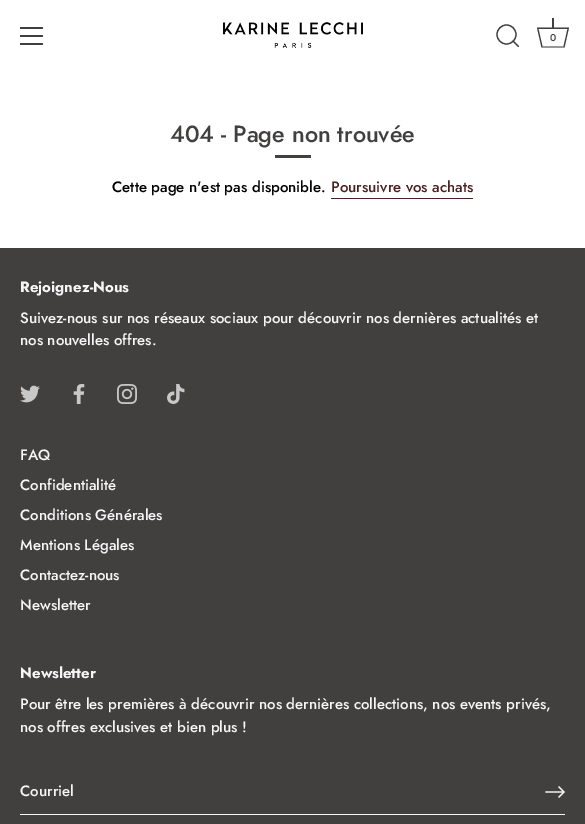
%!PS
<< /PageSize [585 824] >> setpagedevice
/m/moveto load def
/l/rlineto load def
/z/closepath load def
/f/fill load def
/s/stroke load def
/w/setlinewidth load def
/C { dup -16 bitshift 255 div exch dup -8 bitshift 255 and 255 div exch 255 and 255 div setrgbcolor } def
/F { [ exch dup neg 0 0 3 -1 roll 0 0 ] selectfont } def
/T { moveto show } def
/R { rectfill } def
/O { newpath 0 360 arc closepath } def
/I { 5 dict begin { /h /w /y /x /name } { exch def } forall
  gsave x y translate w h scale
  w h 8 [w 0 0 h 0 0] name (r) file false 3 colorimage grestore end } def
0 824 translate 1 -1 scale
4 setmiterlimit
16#FFFFFF C
0 0 585 824 R
16#423F3F C
20 27 23 2 R
20 35 23 2 R
20 43 23 2 R
(1.rgb) 223 22 140 26 I
1.2 w
506.5 34.5 9.5 O s
1 setlinecap
1 setlinejoin
518.5 46.5 m -5.5 -5.5 l s
567.5 29 m -4 17.5 l -21 0 l -4 -17.5 l 29 0 l 569 27.5 m -32 0 l 4.5 20 l 23 0 l z f
552 18 2 10 R
/Jost-Medium 10 F
(0) 550 41 T
/Jost-Medium 23.4 F
(404 - Page non trouvée) 170 142 T
275 155 36 3 R
/Jost-Medium 15 F
16#000000 C
(Cette page n'est pas disponible.) 112 192 T
16#4B2020 C
(Poursuivre vos achats) 331 192 T
331 198 142 1 R
16#423F3F C
0 248 585 576 R
/Jost-Bold 15 F
16#F6F6F6 C
(Rejoignez-Nous) 20 292 T
/Jost-Medium 15 F
(Suivez-nous sur nos réseaux sociaux pour découvrir nos dernières actualités et) 20 323 T
(nos nouvelles offres.) 20 345 T
(2.rgb) 20 385 20 18 I
(3.rgb) 73 384 12 20 I
(4.rgb) 117 384 20 20 I
(5.rgb) 167 384 18 20 I
(FAQ) 20 460 T
(Confidentialité) 20 490 T
(Conditions Générales) 20 520 T
(Mentions Légales) 20 550 T
(Contactez-nous) 20 580 T
(Newsletter) 20 610 T
/Jost-Bold 15 F
(Newsletter) 20 678 T
/Jost-Medium 15 F
(Pour être les premières à découvrir nos dernières collections, nos events privés,) 20 709 T
(nos offres exclusives et bien plus !) 20 732 T
20 814 545 1 R
(Courriel) 20 796 T
1.3 w
0 setlinejoin
559 797 m 5 -5 l -5 -5 l s
1 setlinejoin
563 792 m -17 0 l s
showpage
